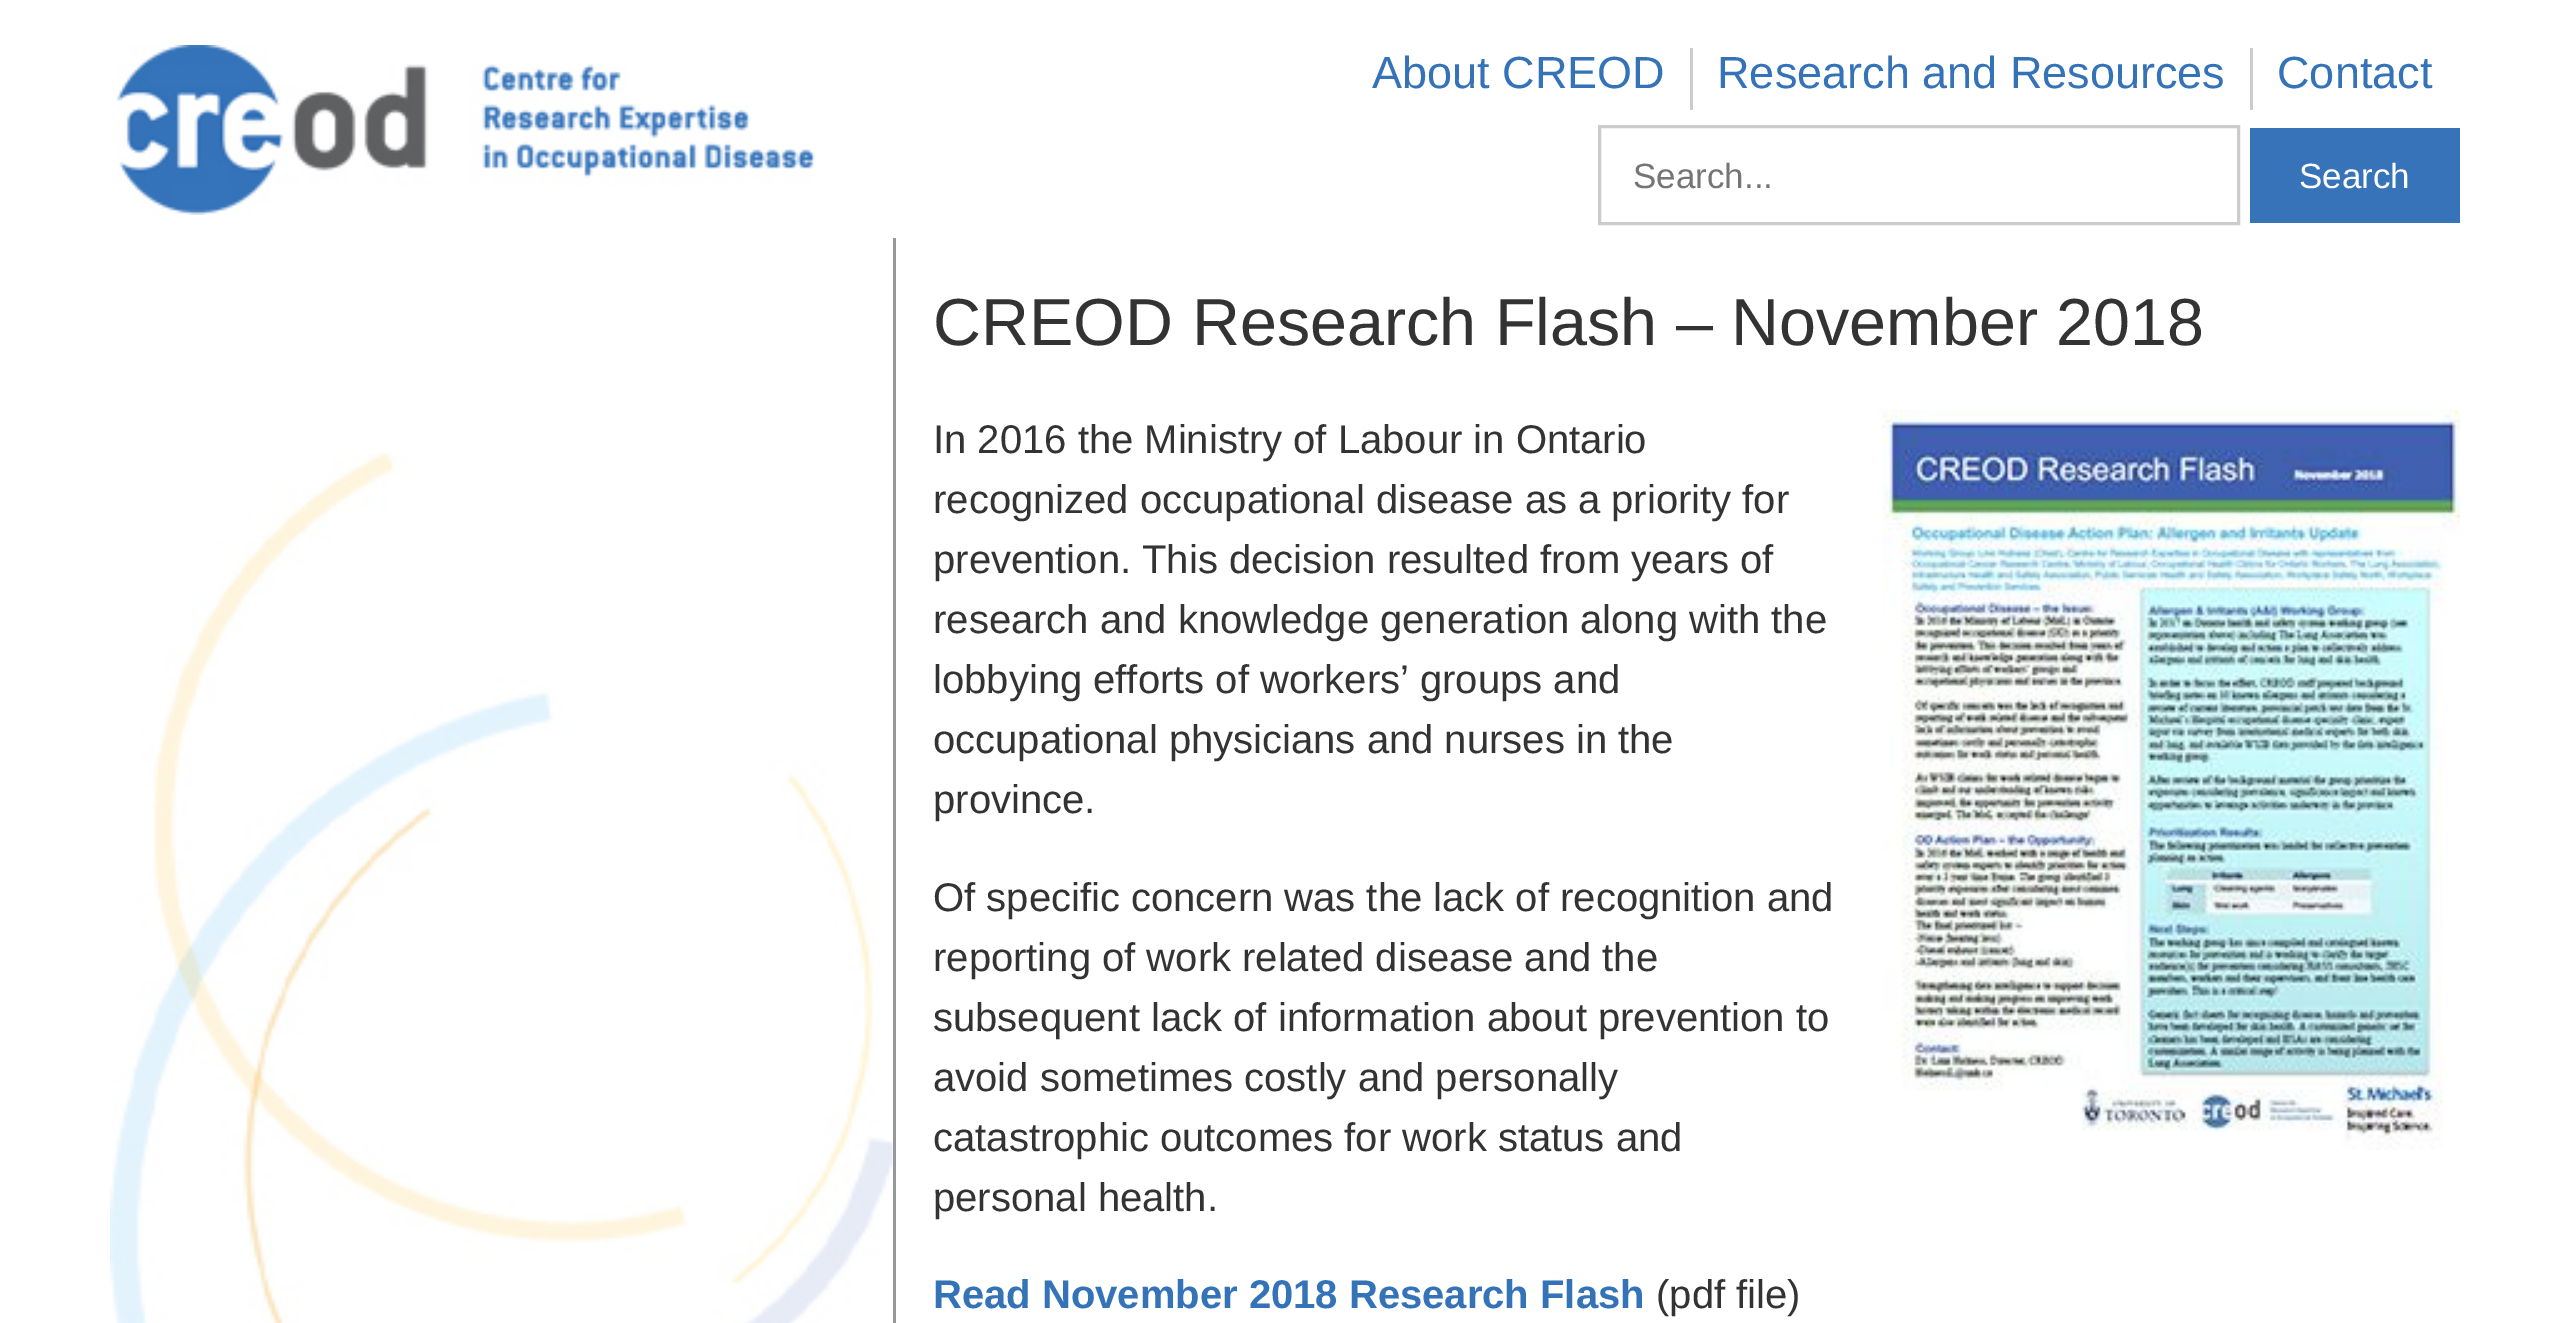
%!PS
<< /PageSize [2569 1323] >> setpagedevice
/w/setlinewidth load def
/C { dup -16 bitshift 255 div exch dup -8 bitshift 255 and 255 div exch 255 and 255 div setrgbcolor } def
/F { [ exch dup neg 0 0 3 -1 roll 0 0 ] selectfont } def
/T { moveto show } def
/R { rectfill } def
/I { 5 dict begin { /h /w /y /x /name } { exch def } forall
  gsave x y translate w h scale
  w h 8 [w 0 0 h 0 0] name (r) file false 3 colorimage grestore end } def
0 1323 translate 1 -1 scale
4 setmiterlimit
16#FFFFFF C
0 0 2569 1323 R
(1.rgb) 116 45 699 170 I
16#CCCCCC C
1690 48 3 62 R
/LiberationSans-Regular 45 F
16#3573B9 C
(About CREOD) 1372 88 T
16#CCCCCC C
2250 48 3 62 R
16#3573B9 C
(Research and Resources) 1717 88 T
(Contact) 2277 88 T
16#CCCCCC C
3 w
1599.5 126.5 639 97 rectstroke
/LiberationSans-Regular 35 F
16#757575 C
(Search...) 1633 188 T
16#3773B9 C
2250 128 210 95 R
16#FFFFFF C
(Search) 2299 188 T
(2.rgb) 110 453 783 870 I
16#979899 C
893 238 3 1085 R
/LiberationSans-Regular 66.5 F
16#333333 C
(CREOD Research Flash – November 2018) 933 345 T
/LiberationSans-Regular 40 F
(In 2016 the Ministry of Labour in Ontario) 933 453 T
(3.rgb) 1882 410 578 740 I
(recognized occupational disease as a priority for) 933 513 T
(prevention. This decision resulted from years of) 933 573 T
(research and knowledge generation along with the) 933 633 T
(lobbying efforts of workers’ groups and) 933 693 T
(occupational physicians and nurses in the) 933 753 T
(province.) 933 813 T
(Of specific concern was the lack of recognition and) 933 911 T
(reporting of work related disease and the) 933 971 T
(subsequent lack of information about prevention to) 933 1031 T
(avoid sometimes costly and personally) 933 1091 T
(catastrophic outcomes for work status and) 933 1151 T
(personal health.) 933 1211 T
/LiberationSans-Bold 40 F
16#3573B9 C
(Read November 2018 Research Flash) 933 1308 T
/LiberationSans-Regular 40 F
16#333333 C
(\(pdf file\)) 1656 1308 T
showpage
